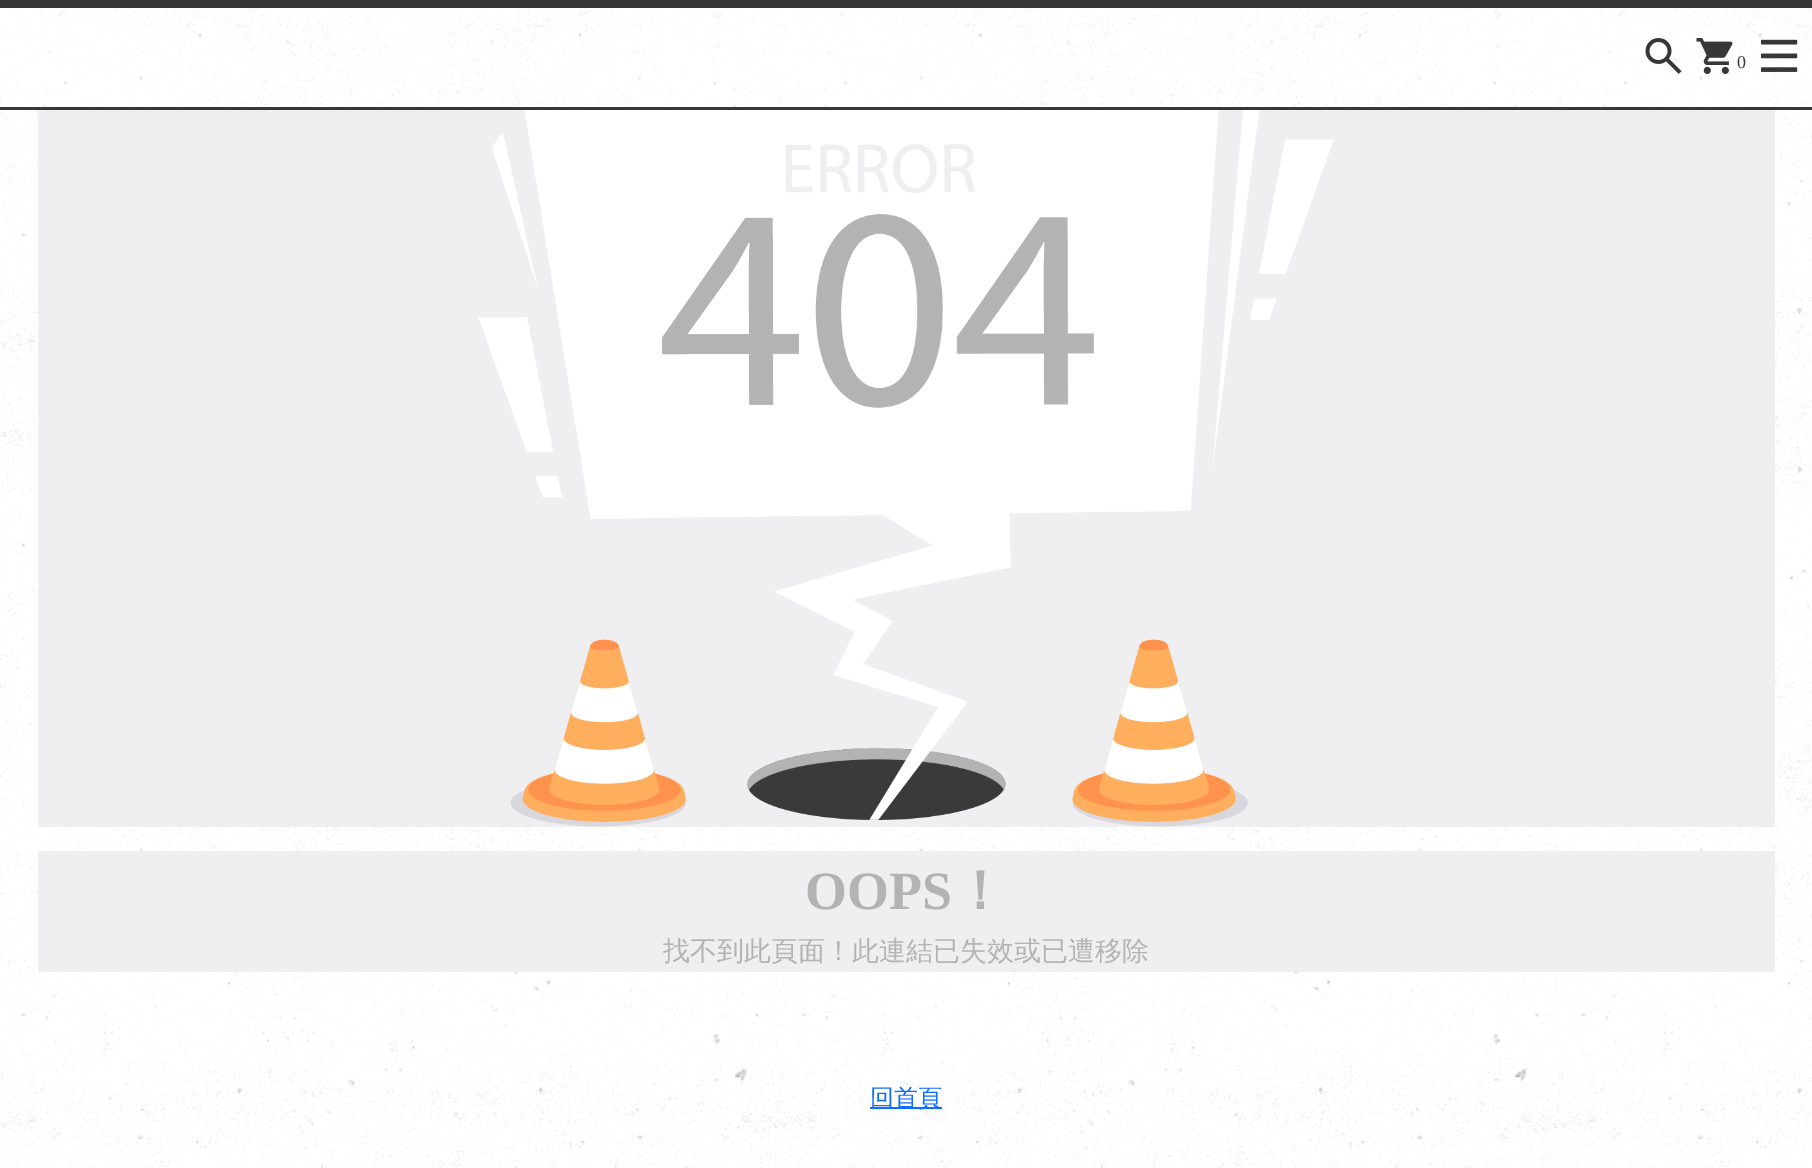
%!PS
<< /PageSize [1812 1168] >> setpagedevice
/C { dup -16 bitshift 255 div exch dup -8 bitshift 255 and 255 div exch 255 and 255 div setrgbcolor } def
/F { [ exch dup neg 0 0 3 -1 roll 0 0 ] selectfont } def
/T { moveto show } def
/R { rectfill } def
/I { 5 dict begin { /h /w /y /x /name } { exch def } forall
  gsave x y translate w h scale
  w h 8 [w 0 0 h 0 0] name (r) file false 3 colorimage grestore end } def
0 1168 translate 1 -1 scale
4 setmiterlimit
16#FFFFFF C
0 0 1812 1168 R
(1.rgb) 0 110 1812 1058 I
(2.rgb) 0 8 1812 99 I
16#373737 C
0 0 1812 8 R
0 107 1812 3 R
(3.rgb) 1645 38 37 36 I
(4.rgb) 1696 38 37 36 I
/LiberationSerif-Regular 18 F
(0) 1737 68 T
(5.rgb) 1761 39 37 33 I
16#EFEFF1 C
38 110 1737 717 R
(6.rgb) 478 110 856 717 I
38 851 1737 121 R
/LiberationSerif-Bold 54 F
16#B3B3B3 C
(OOPS) 805 909 T
/WenQuanYiZenHei-Bold 54 F
(！) 953 909 T
/WenQuanYiZenHei-Medium 27 F
(找不到此頁面！此連結已失效或已遭移除) 663 960 T
16#0D6EFD C
870 1107 72 2 R
/WenQuanYiZenHei-Medium 24 F
(回首頁) 870 1106 T
showpage
